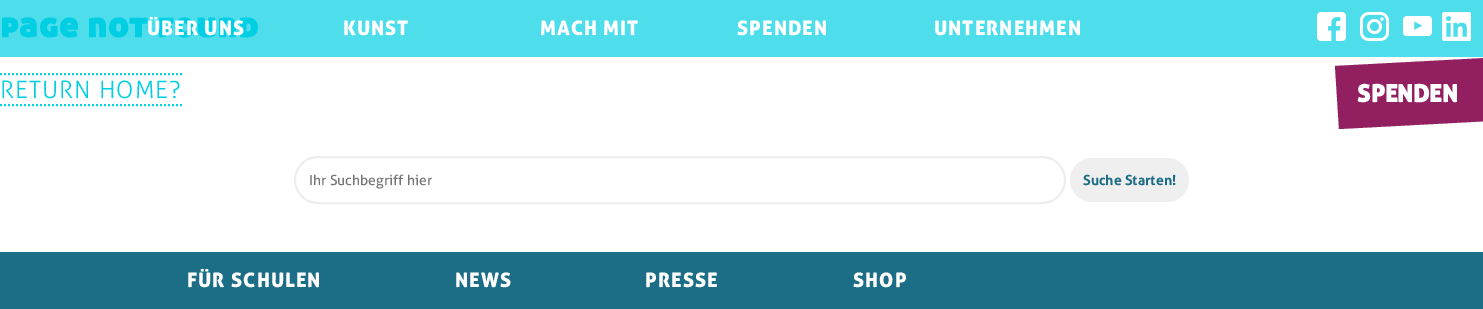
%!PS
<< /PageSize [1483 309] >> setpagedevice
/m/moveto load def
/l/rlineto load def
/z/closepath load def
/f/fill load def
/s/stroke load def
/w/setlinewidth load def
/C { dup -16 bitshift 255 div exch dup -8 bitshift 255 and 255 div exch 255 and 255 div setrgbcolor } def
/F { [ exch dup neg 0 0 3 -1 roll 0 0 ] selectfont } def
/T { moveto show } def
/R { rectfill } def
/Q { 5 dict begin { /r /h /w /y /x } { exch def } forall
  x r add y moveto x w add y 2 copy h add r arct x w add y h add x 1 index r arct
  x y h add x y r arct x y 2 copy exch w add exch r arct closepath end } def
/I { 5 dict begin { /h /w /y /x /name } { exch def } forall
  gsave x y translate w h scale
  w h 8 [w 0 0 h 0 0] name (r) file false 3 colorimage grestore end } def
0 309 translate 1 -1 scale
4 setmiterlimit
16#FFFFFF C
0 0 1483 309 R
16#4DDDEB C
0 0 1483 57 R
/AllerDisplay-Bold 35.25 F
16#00CFE3 C
0 37 m 1 0 (page not found) ashow
/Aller-Light 24 F
0 98 m 1 0 (RETURN HOME?) ashow
2 w
[2 2] 0 setdash
0 74 m 182 0 l s
0 105 m 182 0 l s
/AllerDisplay-Regular 20 F
16#FFFFFF C
147 35 m 1 0 (ÜBER UNS) ashow
343 35 m 1 0 (KUNST) ashow
540 35 m 1 0 (MACH MIT) ashow
737 35 m 1 0 (SPENDEN) ashow
934 35 m 1 0 (UNTERNEHMEN) ashow
(1.rgb) 1317 12 29 29 I
(2.rgb) 1360 12 29 29 I
(3.rgb) 1403 16 29 20 I
(4.rgb) 1442 12 29 29 I
16#921F60 C
1335 66 m 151 -8 l 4 63 l -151 8 l z f
/AllerDisplay-Bold 24 F
16#FFFFFF C
(SPENDEN) 1357 102 T
16#EEEEEE C
[] 0 setdash
295 157 770 46 23 Q s
/Aller-Regular 14 F
16#757575 C
(Ihr Suchbegriff hier) 309 185 T
16#EFEFEF C
1070 158 119 44 22 Q f
/Aller-Bold 14 F
16#1C6E86 C
(Suche Starten!) 1083 185 T
0 252 1483 57 R
/AllerDisplay-Regular 20 F
16#FFFFFF C
187 287 m 1 0 (FÜR SCHULEN) ashow
455 287 m 1 0 (NEWS) ashow
645 287 m 1 0 (PRESSE) ashow
853 287 m 1 0 (SHOP) ashow
showpage
